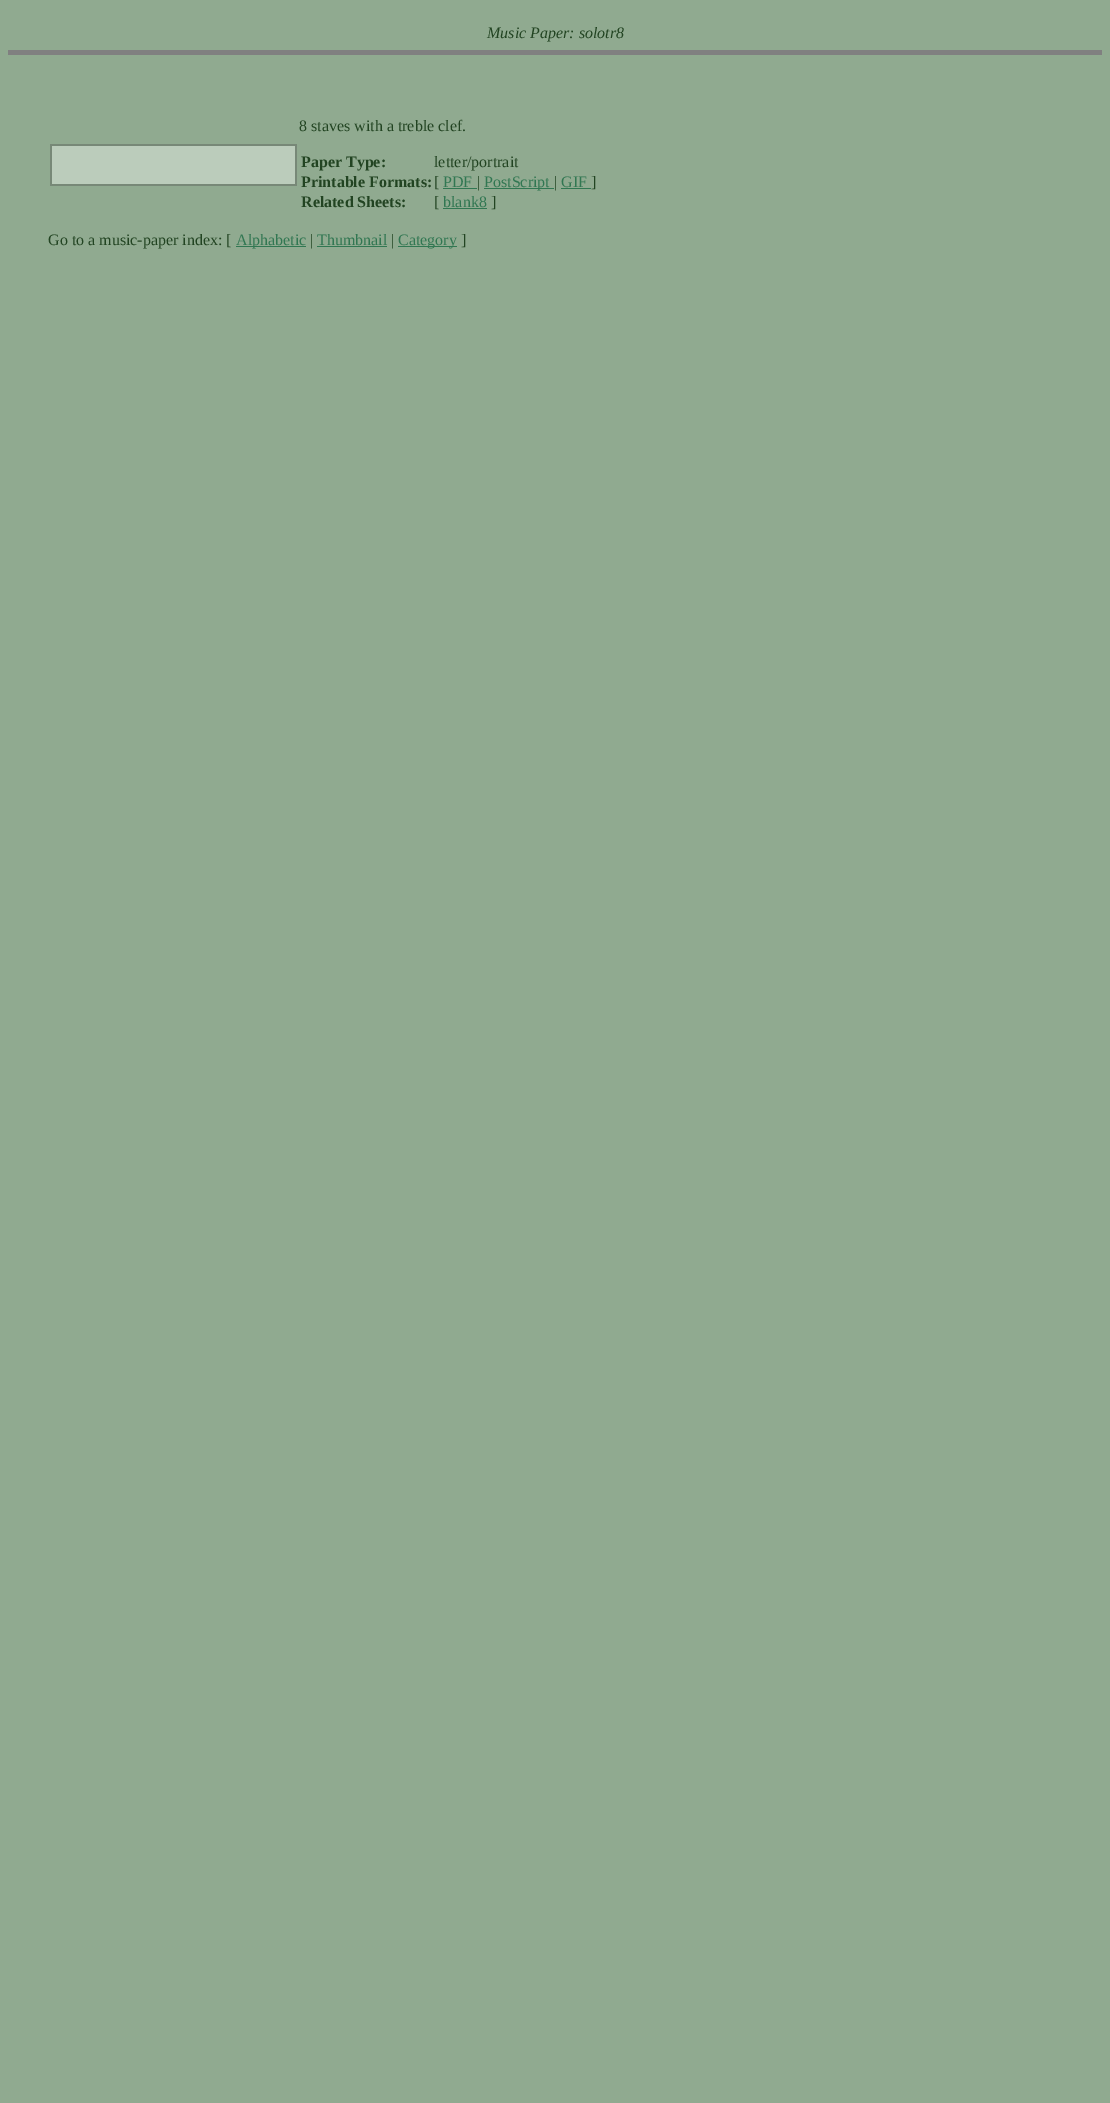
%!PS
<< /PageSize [1110 2103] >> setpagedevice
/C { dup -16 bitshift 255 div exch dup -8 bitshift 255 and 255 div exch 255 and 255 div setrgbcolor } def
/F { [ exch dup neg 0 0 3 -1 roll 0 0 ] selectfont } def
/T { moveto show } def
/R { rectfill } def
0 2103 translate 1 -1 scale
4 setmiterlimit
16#90AA90 C
0 0 1110 2103 R
/LiberationSerif-Italic 16 F
16#224422 C
(Music Paper: solotr8) 487 38 T
16#808080 C
8 50 1094 5 R
16#778877 C
50 144 247 42 R
16#BBCCBB C
52 146 243 38 R
/LiberationSerif-Regular 16 F
16#224422 C
(8 staves with a treble clef.) 299 131 T
/LiberationSerif-Bold 16 F
(Paper Type:) 301 167 T
/LiberationSerif-Regular 16 F
(letter/portrait) 434 167 T
/LiberationSerif-Bold 16 F
(Printable Formats:) 301 187 T
/LiberationSerif-Regular 16 F
([) 434 187 T
16#317752 C
(PDF) 443 187 T
443 188 34 1 R
16#224422 C
(|) 477 187 T
16#317752 C
484 188 70 1 R
(PostScript) 484 187 T
16#224422 C
(|) 554 187 T
16#317752 C
(GIF) 561 187 T
561 188 30 1 R
16#224422 C
(]) 591 187 T
/LiberationSerif-Bold 16 F
(Related Sheets:) 301 207 T
/LiberationSerif-Regular 16 F
([) 434 207 T
16#317752 C
(blank8) 443 207 T
443 208 44 1 R
16#224422 C
(]) 491 207 T
(Go to a music-paper index: [) 48 245 T
16#317752 C
236 246 70 1 R
(Alphabetic) 236 245 T
16#224422 C
(|) 310 245 T
16#317752 C
(Thumbnail) 317 245 T
317 246 70 1 R
16#224422 C
(|) 391 245 T
16#317752 C
398 246 59 1 R
(Category) 398 245 T
16#224422 C
(]) 461 245 T
showpage
